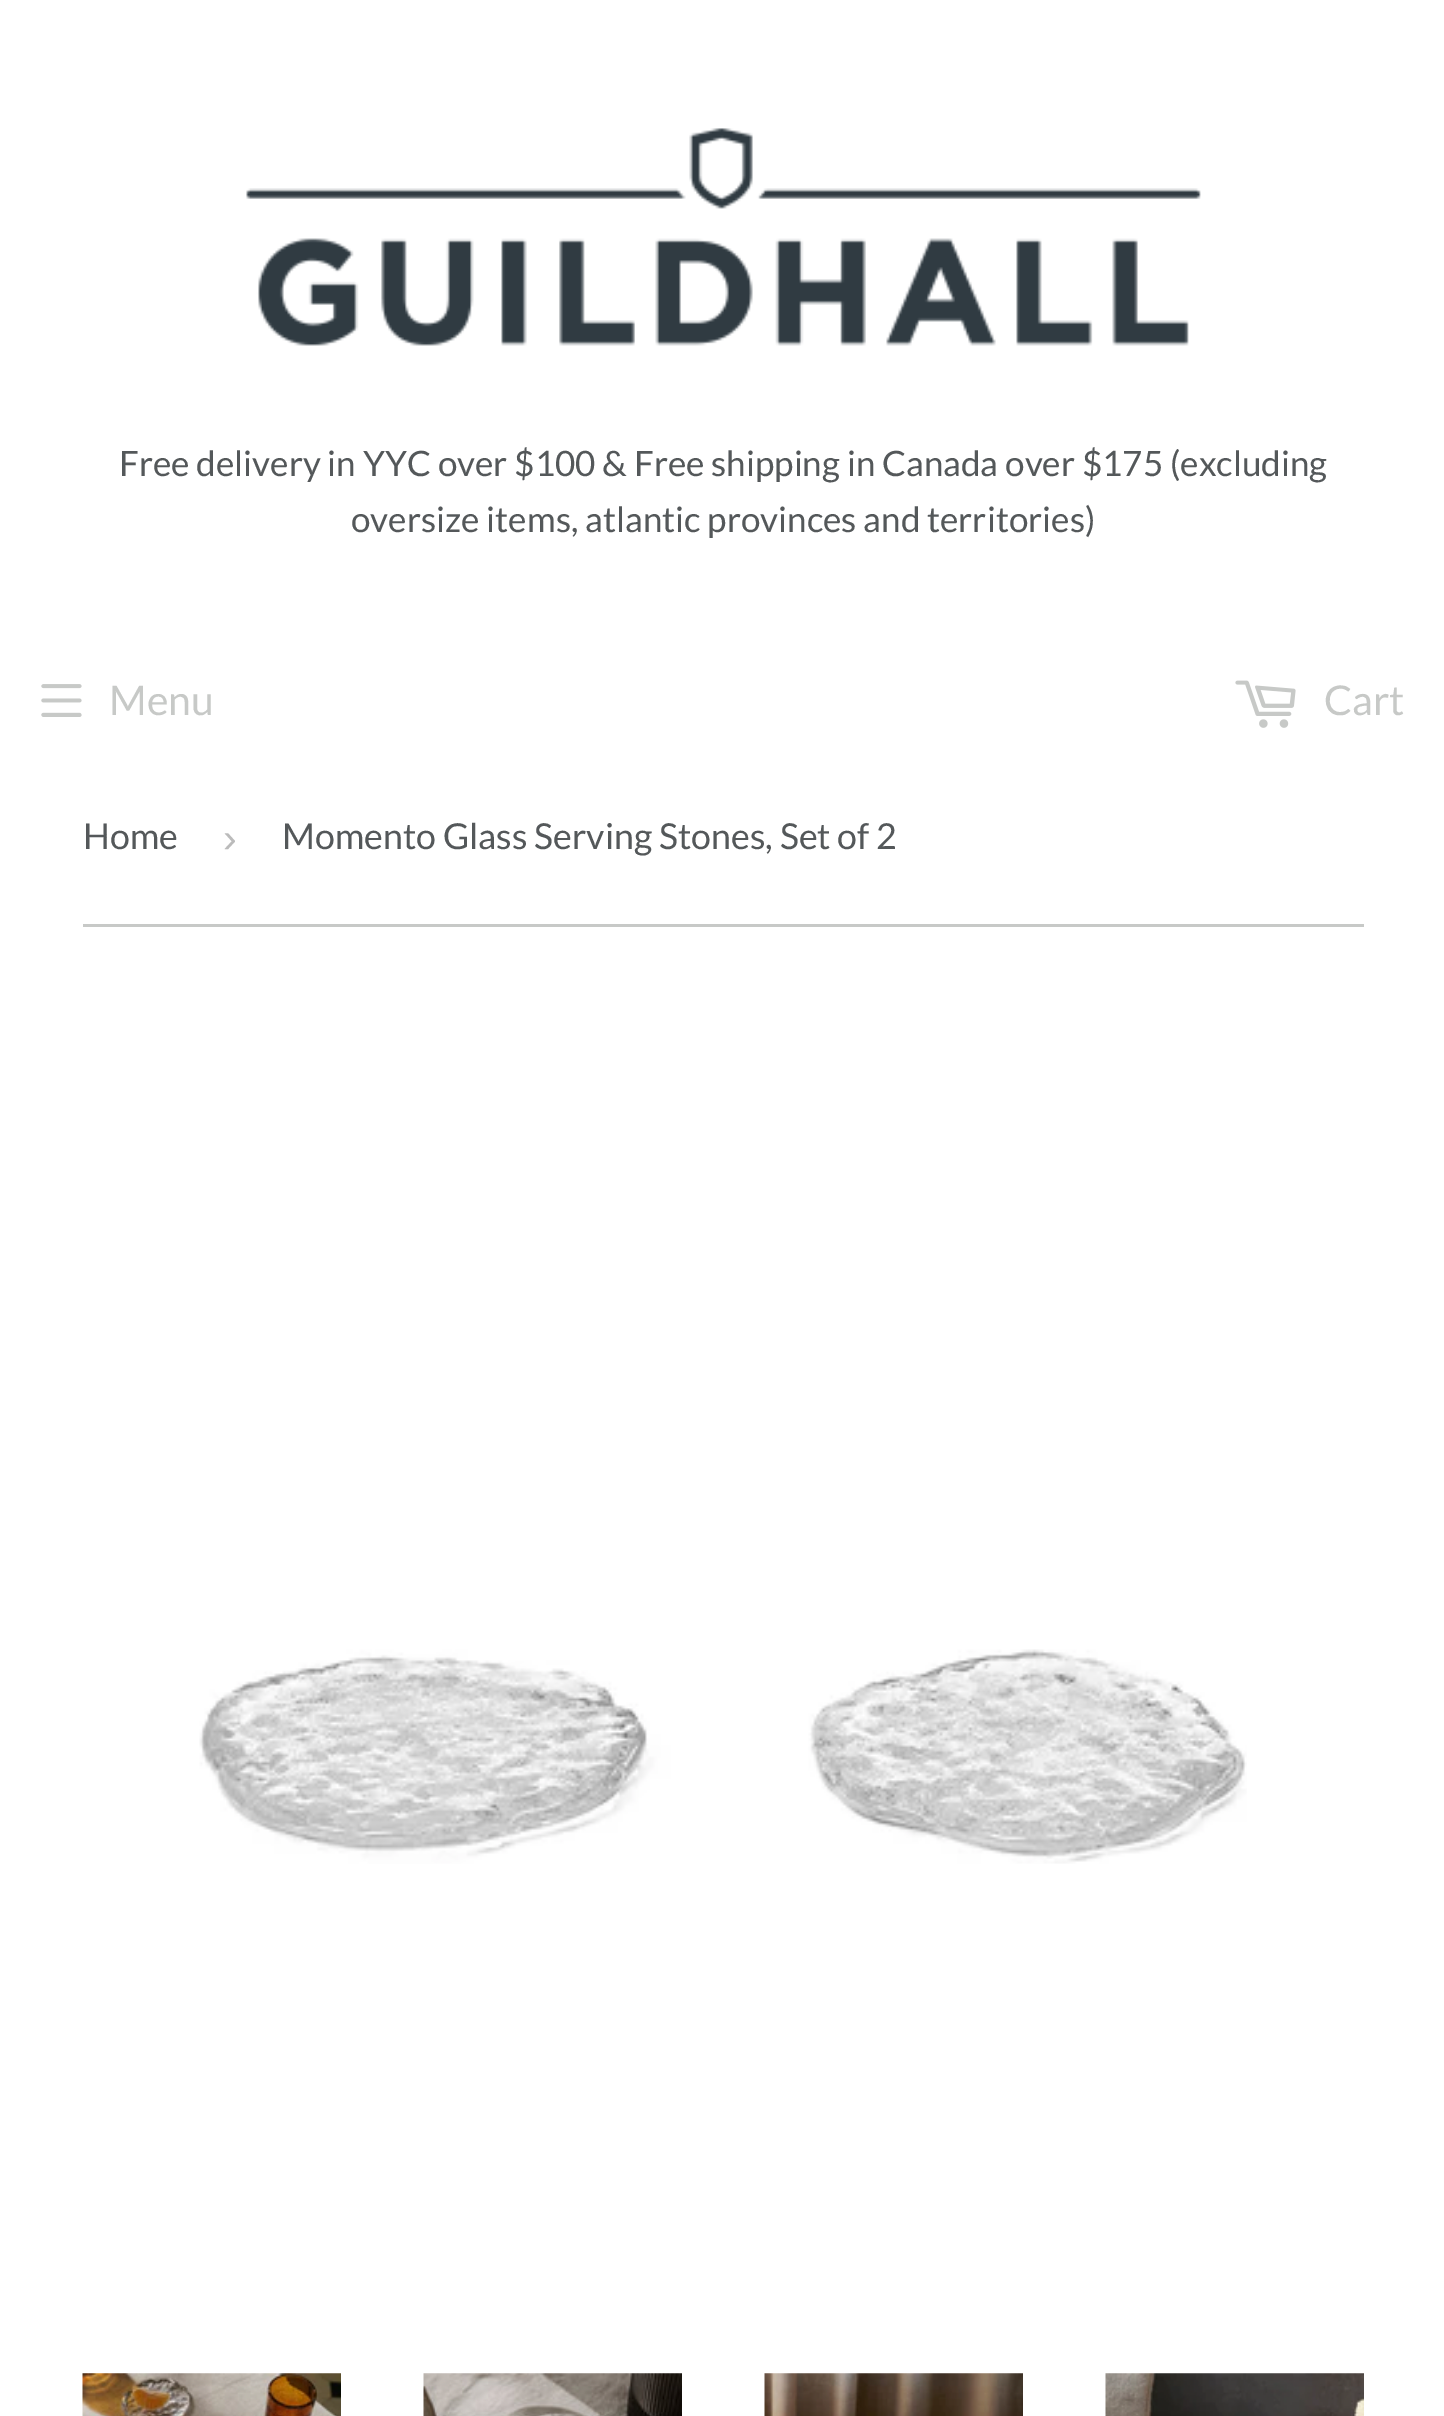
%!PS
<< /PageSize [1444 2416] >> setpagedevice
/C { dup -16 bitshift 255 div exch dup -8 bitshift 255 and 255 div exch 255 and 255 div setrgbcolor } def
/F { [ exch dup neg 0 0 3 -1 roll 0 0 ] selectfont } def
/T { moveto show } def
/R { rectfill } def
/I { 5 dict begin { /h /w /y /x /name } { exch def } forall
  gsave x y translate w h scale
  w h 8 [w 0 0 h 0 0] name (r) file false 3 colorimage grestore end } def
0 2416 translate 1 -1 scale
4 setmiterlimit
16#FFFFFF C
0 0 1444 2416 R
(1.rgb) 246 128 955 218 I
/Lato-Regular 35.05 F
16#54585A C
(Free delivery in YYC over $100 & Free shipping in Canada over $175 \(excluding) 119 476 T
(oversize items, atlantic provinces and territories\)) 351 532 T
(2.rgb) 41 684 41 33 I
/Lato-Regular 41 F
16#C7C9C7 C
(Menu) 109 715 T
(3.rgb) 1235 680 61 48 I
(Cart) 1324 715 T
83 924 1281 3 R
/Lato-Regular 35.75 F
16#54585A C
(Home) 83 849 T
/LiberationSans-Regular 41 F
16#BBBBBB C
(›) 223 852 T
/Lato-Regular 35.75 F
16#54585A C
(Momento Glass Serving Stones, Set of 2) 282 849 T
(4.rgb) 199 1649 1048 215 I
(5.rgb) 82 2373 259 43 I
(6.rgb) 423 2373 259 43 I
(7.rgb) 764 2373 259 43 I
(8.rgb) 1105 2373 259 43 I
showpage
